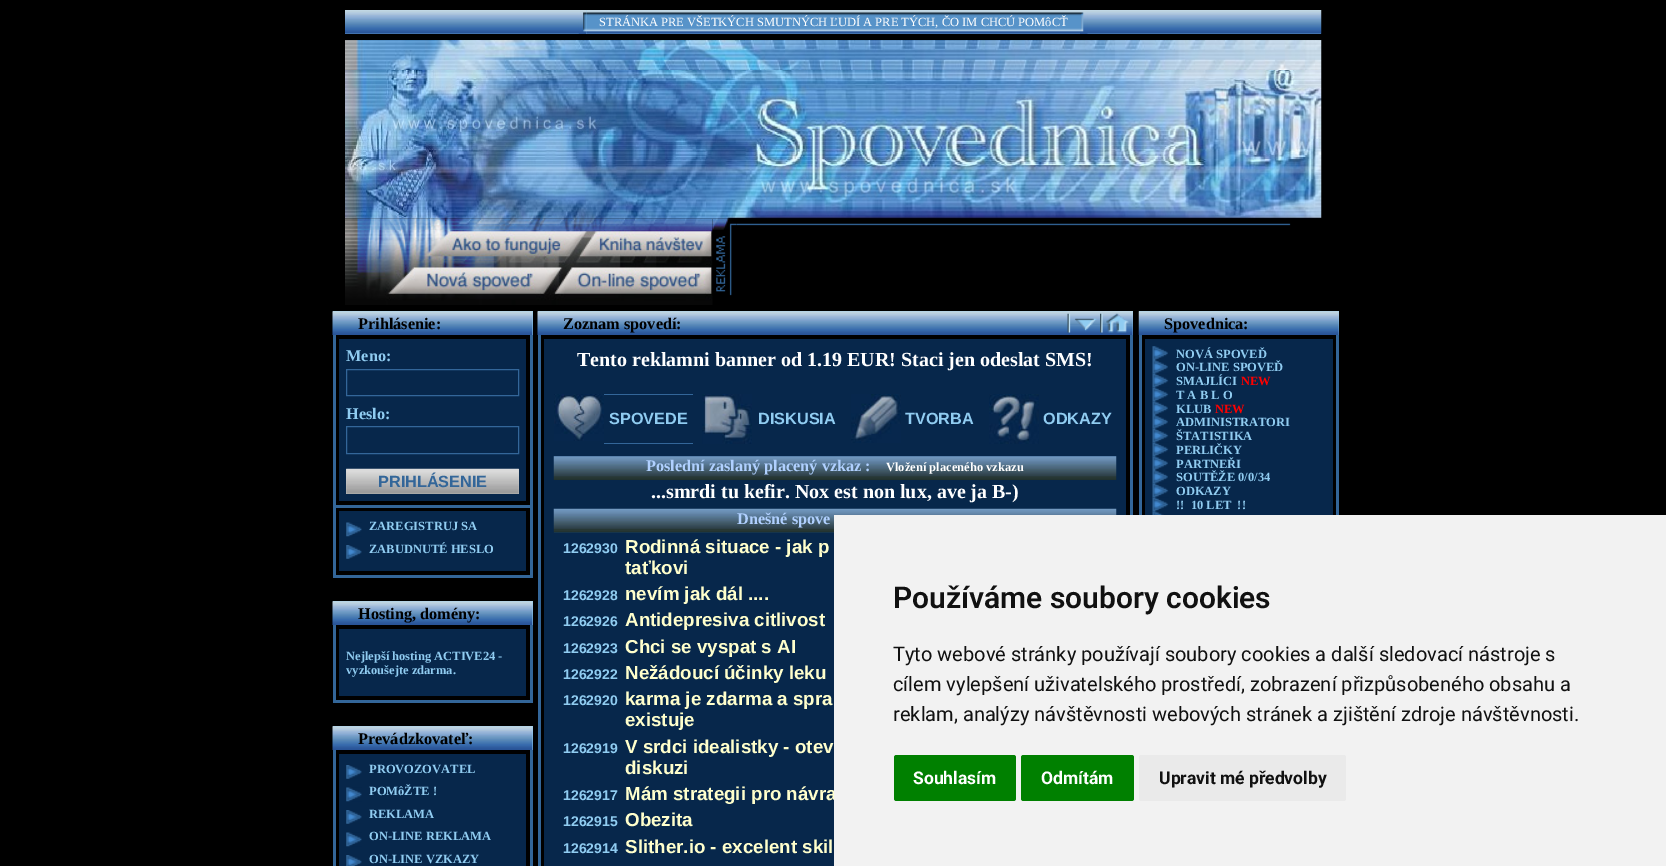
%!PS
<< /PageSize [1666 866] >> setpagedevice
/f/fill load def
/C { dup -16 bitshift 255 div exch dup -8 bitshift 255 and 255 div exch 255 and 255 div setrgbcolor } def
/F { [ exch dup neg 0 0 3 -1 roll 0 0 ] selectfont } def
/T { moveto show } def
/R { rectfill } def
/Q { 5 dict begin { /r /h /w /y /x } { exch def } forall
  x r add y moveto x w add y 2 copy h add r arct x w add y h add x 1 index r arct
  x y h add x y r arct x y 2 copy exch w add exch r arct closepath end } def
/I { 5 dict begin { /h /w /y /x /name } { exch def } forall
  gsave x y translate w h scale
  w h 8 [w 0 0 h 0 0] name (r) file false 3 colorimage grestore end } def
0 866 translate 1 -1 scale
4 setmiterlimit
16#000000 C
0 0 1666 866 R
(1.rgb) 345 10 977 24 I
16#90CCF1 C
586 10 494 24 R
(3.rgb) 586 10 494 24 I
(2.rgb) 578 12 9 22 I
/LiberationSerif-Regular 12.5 F
16#FFFFFF C
(STRÁNKA PRE VŠETKÝCH SMUTNÝCH ĽUDÍ A PRE TÝCH, ČO IM CHCÚ POMôCŤ) 599 26 T
(4.rgb) 1080 12 8 22 I
(5.rgb) 345 40 977 30 I
(6.rgb) 345 70 977 149 I
(7.rgb) 345 218 368 12 I
(8.rgb) 712 218 25 12 I
(9.rgb) 736 223 555 3 I
(10.rgb) 345 230 368 75 I
(11.rgb) 712 230 20 66 I
16#90CCF1 C
333 311 200 24 R
(12.rgb) 332 311 201 24 I
/LiberationSerif-Bold 16.25 F
16#000000 C
(Prihlásenie:) 358 329 T
16#336699 C
530 335 3 243 R
333 505 200 3 R
333 335 3 173 R
16#07274B C
339 339 187 162 R
16#90CCF1 C
(Meno:) 346 361 T
16#336699 C
346.5 369.5 172 26 rectstroke
16#90CCF1 C
(Heslo:) 346 419 T
16#336699 C
346.5 426.5 172 27 rectstroke
16#CCCCCC C
346 469 173 25 R
(13.rgb) 346 468 173 26 I
/LiberationSans-Bold 16.25 F
16#336699 C
(PRIHLÁSENIE) 378 487 T
333 575 200 3 R
333 508 3 70 R
16#07274B C
339 511 187 60 R
(14.rgb) 346 522 16 15 I
/LiberationSerif-Bold 12.5 F
16#90CCF1 C
(ZAREGISTRUJ SA) 369 530 T
(15.rgb) 346 545 16 14 I
(ZABUDNUTÉ HESLO) 369 553 T
333 601 200 24 R
(12.rgb) 332 601 201 24 I
/LiberationSerif-Bold 16.25 F
16#000000 C
(Hosting, domény:) 358 619 T
16#336699 C
530 625 3 78 R
333 700 200 3 R
333 625 3 78 R
16#07274B C
339 629 187 67 R
/LiberationSerif-Bold 12.5 F
16#90CCF1 C
(Nejlepší hosting ACTIVE24 -) 346 660 T
(vyzkoušejte zdarma.) 346 674 T
333 726 200 24 R
(12.rgb) 332 726 201 24 I
/LiberationSerif-Bold 16.25 F
16#000000 C
(Prevádzkovateľ:) 358 744 T
16#336699 C
530 750 3 116 R
333 750 3 116 R
16#07274B C
339 754 187 112 R
(15.rgb) 346 765 16 14 I
/LiberationSerif-Bold 12.5 F
16#90CCF1 C
(PROVOZOVATEL) 369 773 T
(14.rgb) 346 787 16 15 I
(POMôŽTE !) 369 795 T
(15.rgb) 346 810 16 14 I
(REKLAMA) 369 818 T
(14.rgb) 346 832 16 15 I
(ON-LINE REKLAMA) 369 840 T
(16.rgb) 346 855 16 11 I
(ON-LINE VZKAZY) 369 863 T
538 311 595 24 R
(17.rgb) 537 311 596 24 I
/LiberationSerif-Bold 16.25 F
16#000000 C
(Zoznam spovedí:) 563 329 T
(18.rgb) 1067 311 33 22 I
(19.rgb) 1100 311 33 24 I
16#336699 C
1130 335 3 180 R
538 335 3 531 R
16#07274B C
544 339 582 527 R
/LiberationSerif-Bold 20 F
16#FFFFFF C
(Tento reklamni banner od 1.19 EUR! Staci jen odeslat SMS!) 577 366 T
(20.rgb) 554 394 50 47 I
16#336699 C
604 394 89 1 R
604 443 89 1 R
/LiberationSans-Bold 16.25 F
16#90CCF1 C
(SPOVEDE) 609 424 T
(21.rgb) 702 394 50 50 I
(DISKUSIA) 758 424 T
(22.rgb) 851 394 50 49 I
(TVORBA) 905 424 T
(23.rgb) 989 394 50 50 I
(ODKAZY) 1043 424 T
(24.rgb) 553 456 564 24 I
/LiberationSerif-Bold 16.25 F
16#B0D0FF C
(Poslední zaslaný placený vzkaz :) 646 471 T
/LiberationSerif-Bold 12.5 F
16#FFFFFF C
(Vložení placeného vzkazu) 886 471 T
/LiberationSerif-Bold 20 F
(...smrdi tu kefir. Nox est non lux, ave ja B-\)) 651 498 T
16#0A386B C
554 532 280 1 R
(25.rgb) 553 508 564 25 I
/LiberationSerif-Bold 16.25 F
16#B0D0FF C
(Dnešné spove) 737 524 T
/LiberationSans-Bold 14 F
16#90CCF1 C
(1262930) 563 553 T
/LiberationSans-Bold 18.75 F
16#FFFFCC C
(Rodinná situace - jak p) 625 553 T
(taťkovi) 625 574 T
/LiberationSans-Bold 14 F
16#90CCF1 C
(1262928) 563 600 T
/LiberationSans-Bold 18.75 F
16#FFFFCC C
(nevím jak dál ....) 625 600 T
/LiberationSans-Bold 14 F
16#90CCF1 C
(1262926) 563 626 T
/LiberationSans-Bold 18.75 F
16#FFFFCC C
(Antidepresiva citlivost) 625 626 T
/LiberationSans-Bold 14 F
16#90CCF1 C
(1262923) 563 653 T
/LiberationSans-Bold 18.75 F
16#FFFFCC C
(Chci se vyspat s AI) 625 653 T
/LiberationSans-Bold 14 F
16#90CCF1 C
(1262922) 563 679 T
/LiberationSans-Bold 18.75 F
16#FFFFCC C
(Nežádoucí účinky leku) 625 679 T
/LiberationSans-Bold 14 F
16#90CCF1 C
(1262920) 563 705 T
/LiberationSans-Bold 18.75 F
16#FFFFCC C
(karma je zdarma a spra) 625 705 T
(existuje) 625 726 T
/LiberationSans-Bold 14 F
16#90CCF1 C
(1262919) 563 753 T
/LiberationSans-Bold 18.75 F
16#FFFFCC C
(V srdci idealistky - otev) 625 753 T
(diskuzi) 625 774 T
/LiberationSans-Bold 14 F
16#90CCF1 C
(1262917) 563 800 T
/LiberationSans-Bold 18.75 F
16#FFFFCC C
(Mám strategii pro návra) 625 800 T
/LiberationSans-Bold 14 F
16#90CCF1 C
(1262915) 563 826 T
/LiberationSans-Bold 18.75 F
16#FFFFCC C
(Obezita) 625 826 T
/LiberationSans-Bold 14 F
16#90CCF1 C
(1262914) 563 853 T
/LiberationSans-Bold 18.75 F
16#FFFFCC C
(Slither.io - excelent skil) 625 853 T
16#90CCF1 C
1139 311 200 24 R
(26.rgb) 1138 311 201 24 I
/LiberationSerif-Bold 16.25 F
16#000000 C
(Spovednica:) 1164 329 T
16#336699 C
1336 335 3 180 R
1139 335 3 180 R
16#07274B C
1145 339 188 176 R
(27.rgb) 1152 346 16 14 I
/LiberationSerif-Bold 12.5 F
16#90CCF1 C
(NOVÁ SPOVEĎ) 1176 358 T
(28.rgb) 1152 360 16 14 I
(ON-LINE SPOVEĎ) 1176 371 T
(29.rgb) 1152 373 17 15 I
(SMAJLÍCI) 1176 385 T
16#FF0000 C
(NEW) 1241 385 T
(30.rgb) 1152 387 17 15 I
16#90CCF1 C
(T A B L O) 1176 399 T
(31.rgb) 1152 401 16 14 I
(KLUB) 1176 413 T
16#FF0000 C
(NEW) 1215 413 T
(28.rgb) 1152 415 16 14 I
16#90CCF1 C
(ADMINISTRATORI) 1176 426 T
(29.rgb) 1152 428 17 15 I
(ŠTATISTIKA) 1176 440 T
(30.rgb) 1152 442 17 15 I
(PERLIČKY) 1176 454 T
(31.rgb) 1152 456 16 14 I
(PARTNEŘI) 1176 468 T
(28.rgb) 1152 470 16 14 I
(SOUTĚŽE 0/0/34) 1176 481 T
(29.rgb) 1152 483 17 15 I
(ODKAZY) 1176 495 T
(30.rgb) 1152 497 17 15 I
(!!  10 LET  !!) 1176 509 T
(32.rgb) 1152 511 16 4 I
16#F2F2F2 C
834 515 832 351 R
/Roboto-SemiBold 30 F
16#111111 C
(Používáme soubory cookies) 893 608 T
/Roboto-Regular 20 F
(Tyto webové stránky používají soubory cookies a další sledovací nástroje s) 893 661 T
(cílem vylepšení uživatelského prostředí, zobrazení přizpůsobeného obsahu a) 893 691 T
(reklam, analýzy návštěvnosti webových stránek a zjištění zdroje návštěvnosti.) 893 721 T
16#008000 C
894 755 122 46 2.5 Q f
/Roboto-Bold 17.5 F
16#FFFFFF C
(Souhlasím) 913 784 T
16#008000 C
1021 755 113 46 2.5 Q f
16#FFFFFF C
(Odmítám) 1041 784 T
16#EAEAEA C
1139 755 207 46 2.5 Q f
16#111111 C
(Upravit mé předvolby) 1159 784 T
showpage
